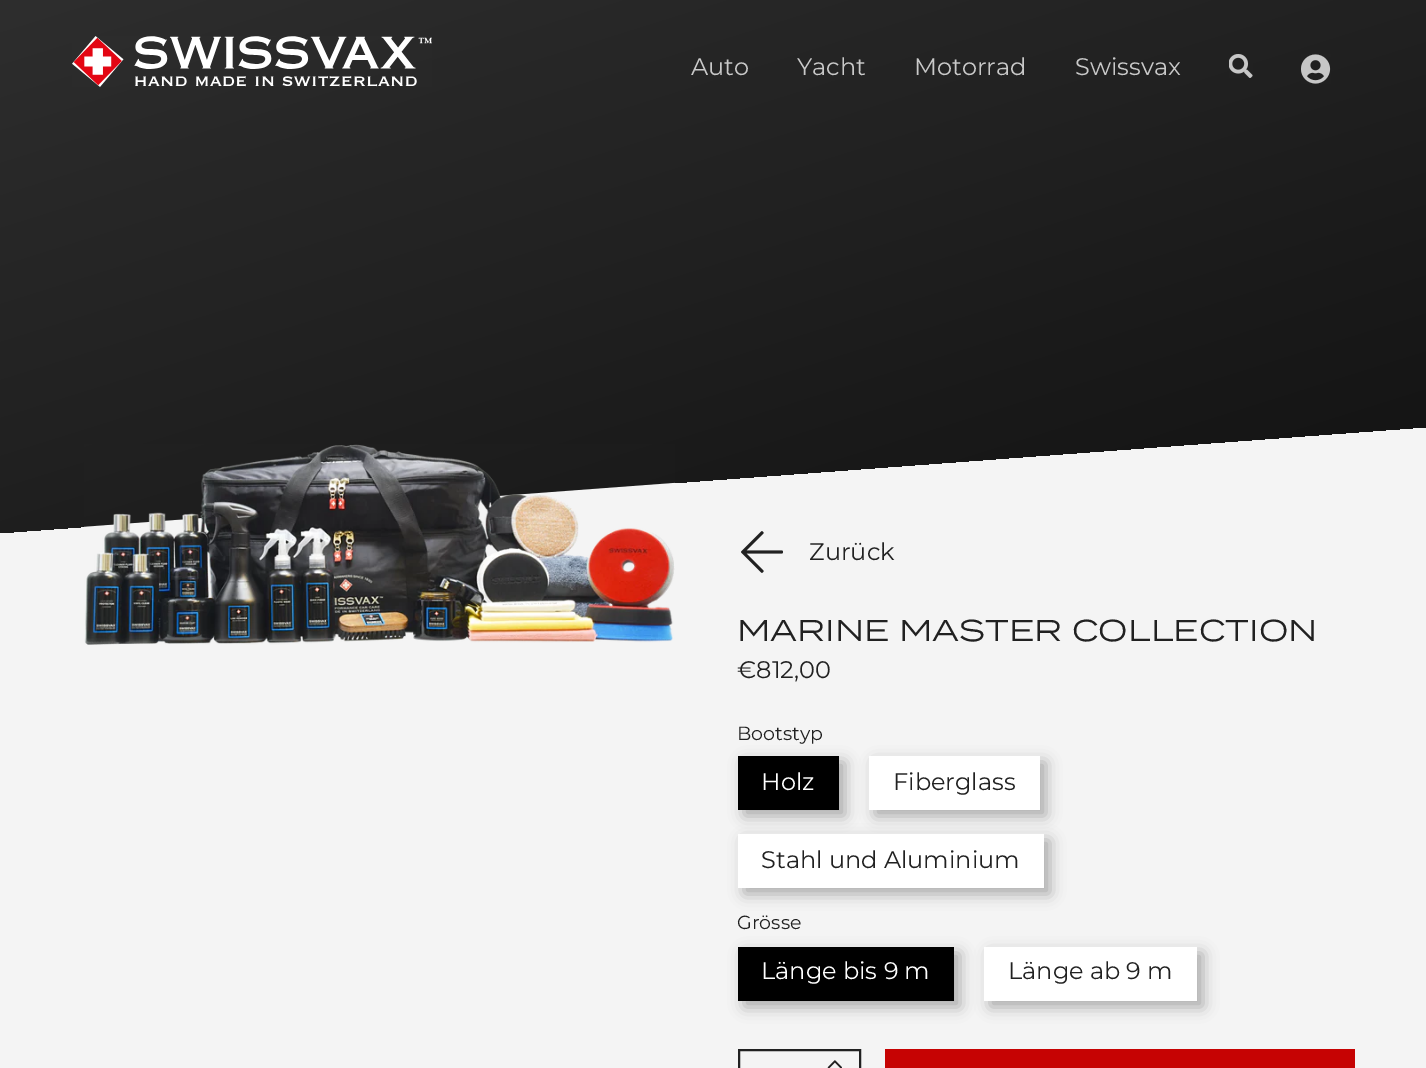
%!PS
<< /PageSize [1426 1068] /PageUsesTransparency true >> setpagedevice
/m/moveto load def
/l/rlineto load def
/z/closepath load def
/q/gsave load def
/Q_/grestore load def
/w/setlinewidth load def
/C { dup -16 bitshift 255 div exch dup -8 bitshift 255 and 255 div exch 255 and 255 div setrgbcolor } def
/F { [ exch dup neg 0 0 3 -1 roll 0 0 ] selectfont } def
/T { moveto show } def
/R { rectfill } def
/A { dup .setfillconstantalpha .setstrokeconstantalpha } def
/Q { 5 dict begin { /r /h /w /y /x } { exch def } forall
  x r add y moveto x w add y 2 copy h add r arct x w add y h add x 1 index r arct
  x y h add x y r arct x y 2 copy exch w add exch r arct closepath end } def
/S { 12 dict begin { /a /b /q /h /w /y /x } { exch def } forall gsave /was 0 def
  9 -2 -9 { dup b mul 4 div /e exch def 1 sub .425 mul 2.718 exch exp 1 add a .99 .min exch div /now exch def
    1 1 now sub 1 was sub div sub A /was now def
    w h .min e 2 mul add 0 gt { x e sub y e sub w e 2 mul add h e 2 mul add
      q e add b .6 mul add w h .min 2 div e add .min 0 .max Q fill } if } for grestore end } def
/I { 5 dict begin { /h /w /y /x /name } { exch def } forall
  gsave x y translate w h scale
  w h 8 [w 0 0 h 0 0] name (r) file false 3 colorimage grestore end } def
0 .pushpdf14devicefilter
0 1068 translate 1 -1 scale
4 setmiterlimit
16#F4F4F4 C
0 0 1426 1068 R
q 0 -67 m 1426 -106 l 0 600 l -1426 106 l z clip newpath
<< /ShadingType 2 /ColorSpace /DeviceRGB /Coords [568 -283 858 643] /Extend [true true] /Function << /FunctionType 2 /Domain [0 1] /C0 [.192 .192 .192] /C1 [.078 .078 .078] /N 1 >> >> shfill Q_
(1.rgb) 72 36 360 51 I
/Montserrat-Regular 24 F
16#C9C9C9 C
(Auto) 691 75 T
(Yacht) 797 75 T
(Motorrad) 914 75 T
(Swissvax) 1075 75 T
(2.rgb) 1229 54 24 24 I
(3.rgb) 1301 54 30 30 I
(4.rgb) 84 444 591 201 I
(5.rgb) 741 531 42 42 I
16#212121 C
(Zurück) 809 560 T
/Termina-Regular 30 F
(MARINE MASTER COLLECTION) 737 641 T
/Montserrat-Regular 24 F
(€812,00) 737 678 T
/Montserrat-Regular 19 F
(Bootstyp) 737 740 T
16#000000 C
744 762 101 54 0 7.5 .3 S
738 756 101 54 R
/Montserrat-Regular 24 F
16#FFFFFF C
(Holz) 761 790 T
16#000000 C
875 762 171 54 0 7.5 .3 S
16#FFFFFF C
869 756 171 54 R
16#212121 C
(Fiberglass) 893 790 T
16#000000 C
744 840 306 54 0 7.5 .3 S
16#FFFFFF C
738 834 306 54 R
16#212121 C
(Stahl und Aluminium) 761 868 T
/Montserrat-Regular 19 F
(Grösse) 737 929 T
16#000000 C
744 953 216 54 0 7.5 .3 S
738 947 216 54 R
/Montserrat-Regular 24 F
16#FFFFFF C
(Länge bis 9 m) 761 979 T
16#000000 C
990 953 213 54 0 7.5 .3 S
16#FFFFFF C
984 947 213 54 R
16#212121 C
(Länge ab 9 m) 1008 979 T
2 w
739 1050 121 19 rectstroke
(6.rgb) 827 1060 15 8 I
16#C60303 C
885 1049 470 19 R
.poppdf14devicefilter showpage
